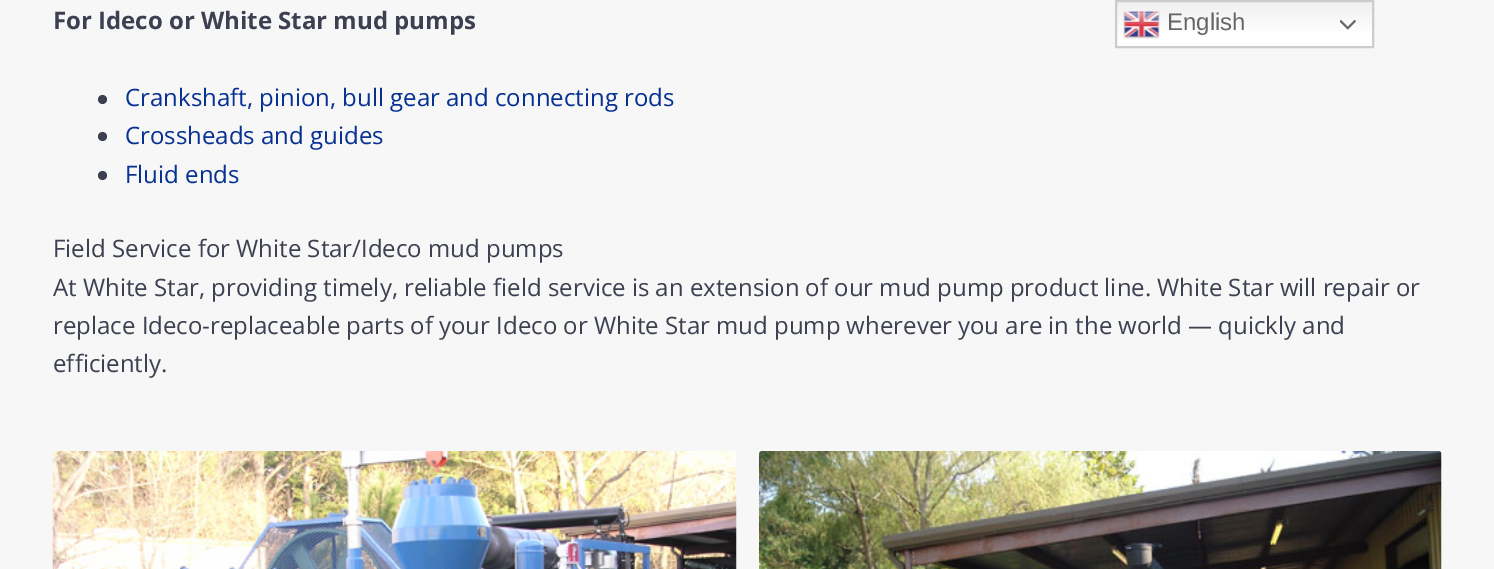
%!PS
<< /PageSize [1494 569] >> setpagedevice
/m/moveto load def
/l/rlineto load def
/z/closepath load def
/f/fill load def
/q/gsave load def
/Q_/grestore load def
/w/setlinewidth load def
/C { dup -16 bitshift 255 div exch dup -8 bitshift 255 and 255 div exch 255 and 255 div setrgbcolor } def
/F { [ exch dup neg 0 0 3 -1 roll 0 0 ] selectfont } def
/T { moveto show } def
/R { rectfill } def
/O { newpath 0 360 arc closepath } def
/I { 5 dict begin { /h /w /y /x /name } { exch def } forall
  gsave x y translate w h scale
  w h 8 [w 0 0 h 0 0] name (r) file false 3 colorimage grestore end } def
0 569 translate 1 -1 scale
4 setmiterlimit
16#F7F7F7 C
0 0 1494 569 R
/OpenSans-Bold 24 F
16#3C4050 C
(For Ideco or White Star mud pumps) 53 29 T
102.5 99.5 4.5 O f
/OpenSans-Regular 24 F
16#083194 C
(Crankshaft, pinion, bull gear and connecting rods) 125 106 T
16#3C4050 C
102.5 136.5 4.5 O f
16#083194 C
(Crossheads and guides) 125 144 T
16#3C4050 C
102.5 175.5 4.5 O f
16#083194 C
(Fluid ends) 125 183 T
16#3C4050 C
(Field Service for White Star/Ideco mud pumps) 53 257 T
(At White Star, providing timely, reliable field service is an extension of our mud pump product line. White Star will repair or) 53 296 T
(replace Ideco-replaceable parts of your Ideco or White Star mud pump wherever you are in the world — quickly and) 53 334 T
(efficiently.) 53 372 T
(1.rgb) 52 451 685 118 I
(2.rgb) 759 451 683 118 I
q 1117 2 m 255 0 l 0 44 l -255 0 l z clip newpath
<< /ShadingType 2 /ColorSpace /DeviceRGB /Coords [1244 0 1244 48] /Extend [true true] /Function << /FunctionType 3 /Domain [0 1] /Functions [<< /FunctionType 2 /Domain [0 1] /C0 [.937 .937 .937] /C1 [1 1 1] /N 1 >> << /FunctionType 2 /Domain [0 1] /C0 [1 1 1] /C1 [1 1 1] /N 1 >>] /Bounds [.7] /Encode [0 1 0 1] >> >> shfill Q_
16#CCCCCC C
2 w
1116 1 257 46 rectstroke
(3.rgb) 1123 11 37 28 I
/LiberationSans-Regular 24 F
16#666666 C
(English) 1167 30 T
(4.rgb) 1340 20 16 10 I
showpage
